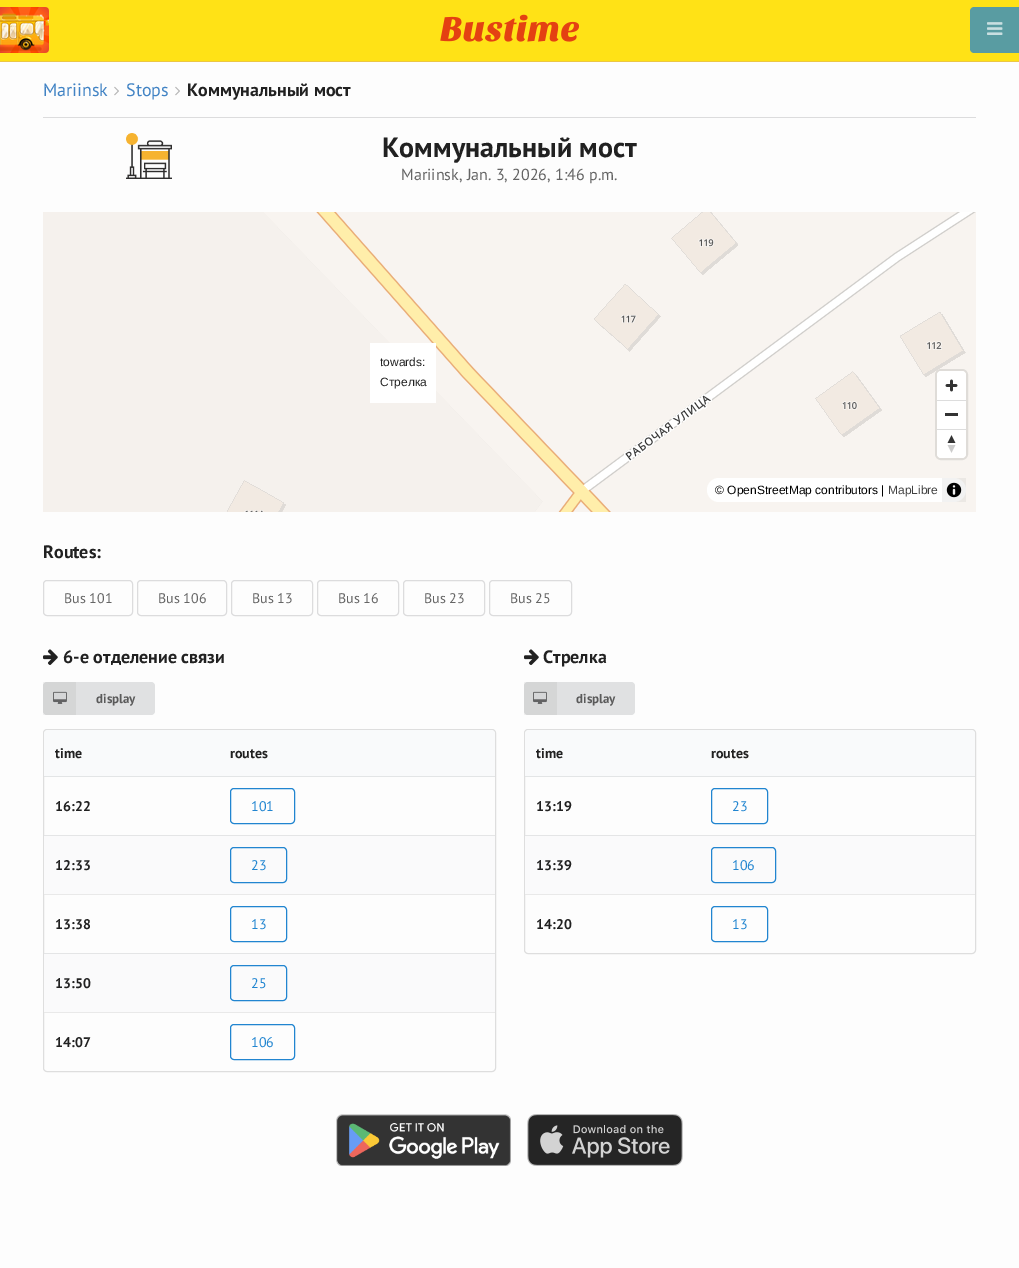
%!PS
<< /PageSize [1019 1268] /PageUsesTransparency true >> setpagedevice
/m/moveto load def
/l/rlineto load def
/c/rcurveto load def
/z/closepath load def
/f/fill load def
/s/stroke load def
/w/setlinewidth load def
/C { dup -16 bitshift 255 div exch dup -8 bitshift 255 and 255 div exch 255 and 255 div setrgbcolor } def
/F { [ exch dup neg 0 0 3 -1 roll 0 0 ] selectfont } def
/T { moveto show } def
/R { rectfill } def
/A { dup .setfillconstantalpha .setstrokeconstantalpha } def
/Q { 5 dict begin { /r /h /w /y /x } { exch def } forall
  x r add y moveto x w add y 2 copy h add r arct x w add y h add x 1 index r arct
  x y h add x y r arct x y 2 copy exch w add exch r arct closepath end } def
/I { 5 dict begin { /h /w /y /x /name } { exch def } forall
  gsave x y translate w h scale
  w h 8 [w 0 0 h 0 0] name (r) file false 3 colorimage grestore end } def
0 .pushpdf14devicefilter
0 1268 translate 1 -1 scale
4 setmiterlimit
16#FDFDFD C
0 0 1019 1268 R
16#FFE216 C
0 0 1019 61 R
(1.rgb) 0 7 49 46 I
16#599CA2 C
974 7 m 45 0 l 0 46 l -45 0 l -2 0 -4 -2 -4 -4 c 0 -38 l 0 -2 2 -4 4 -4 c z f
(2.rgb) 987 22 16 13 I
16#ECC745 C
0 61 1019 1 R
(3.rgb) 440 14 140 28 I
/PTSans-Regular 18 F
16#4183C4 C
(Mariinsk) 43 96 T
(4.rgb) 114 86 5 10 I
(Stops) 126 96 T
(4.rgb) 175 86 5 10 I
/PTSans-Bold 18 F
16#212121 C
(Коммунальный мост) 187 96 T
16#DCDCDD C
43 117 933 1 R
(5.rgb) 126 133 46 46 I
/PTSans-Bold 28 F
16#212121 C
(Коммунальный мост) 382 157 T
/PTSans-Regular 16 F
16#656565 C
(Mariinsk, Jan. 3, 2026, 1:46 p.m.) 401 180 T
(6.rgb) 43 212 933 300 I
16#FFFFFF C
370 343 66 60 R
/LiberationSans-Regular 12 F
16#212121 C
(towards:) 380 366 T
(Стрелка) 380 386 T
16#DFDCD8 C
2 w
936 370 31 89 5 Q s
16#FFFFFF C
937 371 29 87 4 Q f
(7.rgb) 945 379 13 13 I
16#DDDDDD C
937 400 29 1 R
16#333333 C
945 413 13 3 R
16#DDDDDD C
937 429 29 1 R
(8.rgb) 947 435 9 18 I
16#FFFFFF C
707 478 259 24 12 Q f
16#000000 C
(© OpenStreetMap contributors |) 715 494 T
16#404040 C
(MapLibre) 888 494 T
0.05 A
16#000000 C
942 478 24 24 R
1 A
(9.rgb) 946 482 16 16 I
/PTSans-Bold 18 F
16#212121 C
(Routes:) 43 558 T
16#DCDCDD C
1 w
43.5 580.5 89 35 3.5 Q s
/PTSans-Regular 14 F
16#656565 C
(Bus 101) 64 603 T
16#DCDCDD C
137.5 580.5 89 35 3.5 Q s
16#656565 C
(Bus 106) 158 603 T
16#DCDCDD C
231.5 580.5 81 35 3.5 Q s
16#656565 C
(Bus 13) 252 603 T
16#DCDCDD C
317.5 580.5 81 35 3.5 Q s
16#656565 C
(Bus 16) 338 603 T
16#DCDCDD C
403.5 580.5 81 35 3.5 Q s
16#656565 C
(Bus 23) 424 603 T
16#DCDCDD C
489.5 580.5 82 35 3.5 Q s
16#656565 C
(Bus 25) 510 603 T
(10.rgb) 43 649 15 16 I
/PTSans-Bold 18 F
16#212121 C
(6-е отделение связи) 63 663 T
16#E0E1E2 C
43 682 112 33 4 Q f
0.05 A
16#000000 C
43 682 33 33 R
1 A
(11.rgb) 53 691 14 13 I
/PTSans-Bold 13 F
16#5A5A5A C
(display) 96 703 T
16#DEDEDE C
43.5 729.5 452 342 3.5 Q s
16#F9FAFB C
48 730 m 171 0 l 0 47 l -175 0 l 0 -43 l 0 -2 2 -4 4 -4 c z f
16#E3E5E6 C
44 776 175 1 R
/PTSans-Bold 14 F
16#212121 C
(time) 55 758 T
16#F9FAFB C
219 730 m 272 0 l 2 0 4 2 4 4 c 0 43 l -276 0 l z f
16#E3E5E6 C
219 776 276 1 R
16#212121 C
(routes) 230 758 T
(16:22) 55 811 T
16#2185D0 C
230.5 788.5 64 35 3.5 Q s
/PTSans-Regular 14 F
(101) 251 811 T
16#FAFAFB C
44 836 451 58 R
16#E4E5E6 C
44 835 451 1 R
/PTSans-Bold 14 F
16#212121 C
(12:33) 55 870 T
16#2185D0 C
230.5 847.5 56 35 3.5 Q s
/PTSans-Regular 14 F
(23) 251 870 T
16#E9E9E9 C
44 894 451 1 R
/PTSans-Bold 14 F
16#212121 C
(13:38) 55 929 T
16#2185D0 C
230.5 906.5 56 35 3.5 Q s
/PTSans-Regular 14 F
(13) 251 929 T
16#FAFAFB C
44 954 451 58 R
16#E4E5E6 C
44 953 451 1 R
/PTSans-Bold 14 F
16#212121 C
(13:50) 55 988 T
16#2185D0 C
230.5 965.5 56 35 3.5 Q s
/PTSans-Regular 14 F
(25) 251 988 T
16#E9E9E9 C
44 1012 451 1 R
/PTSans-Bold 14 F
16#212121 C
(14:07) 55 1047 T
16#2185D0 C
230.5 1024.5 64 35 3.5 Q s
/PTSans-Regular 14 F
(106) 251 1047 T
(10.rgb) 524 649 15 16 I
/PTSans-Bold 18 F
16#212121 C
(Стрелка) 543 663 T
16#E0E1E2 C
524 682 111 33 4 Q f
0.05 A
16#000000 C
524 682 33 33 R
1 A
(11.rgb) 533 691 14 13 I
/PTSans-Bold 13 F
16#5A5A5A C
(display) 576 703 T
16#DEDEDE C
524.5 729.5 451 224 3.5 Q s
16#F9FAFB C
529 730 m 171 0 l 0 47 l -175 0 l 0 -43 l 0 -2 2 -4 4 -4 c z f
16#E3E5E6 C
525 776 175 1 R
/PTSans-Bold 14 F
16#212121 C
(time) 536 758 T
16#F9FAFB C
700 730 m 271 0 l 2 0 4 2 4 4 c 0 43 l -275 0 l z f
16#E3E5E6 C
700 776 275 1 R
16#212121 C
(routes) 711 758 T
(13:19) 536 811 T
16#2185D0 C
711.5 788.5 56 35 3.5 Q s
/PTSans-Regular 14 F
(23) 732 811 T
16#FAFAFB C
525 836 450 58 R
16#E4E5E6 C
525 835 450 1 R
/PTSans-Bold 14 F
16#212121 C
(13:39) 536 870 T
16#2185D0 C
711.5 847.5 64 35 3.5 Q s
/PTSans-Regular 14 F
(106) 732 870 T
16#E9E9E9 C
525 894 450 1 R
/PTSans-Bold 14 F
16#212121 C
(14:20) 536 929 T
16#2185D0 C
711.5 906.5 56 35 3.5 Q s
/PTSans-Regular 14 F
(13) 732 929 T
(12.rgb) 336 1114 175 52 I
(13.rgb) 527 1114 156 52 I
.poppdf14devicefilter showpage
